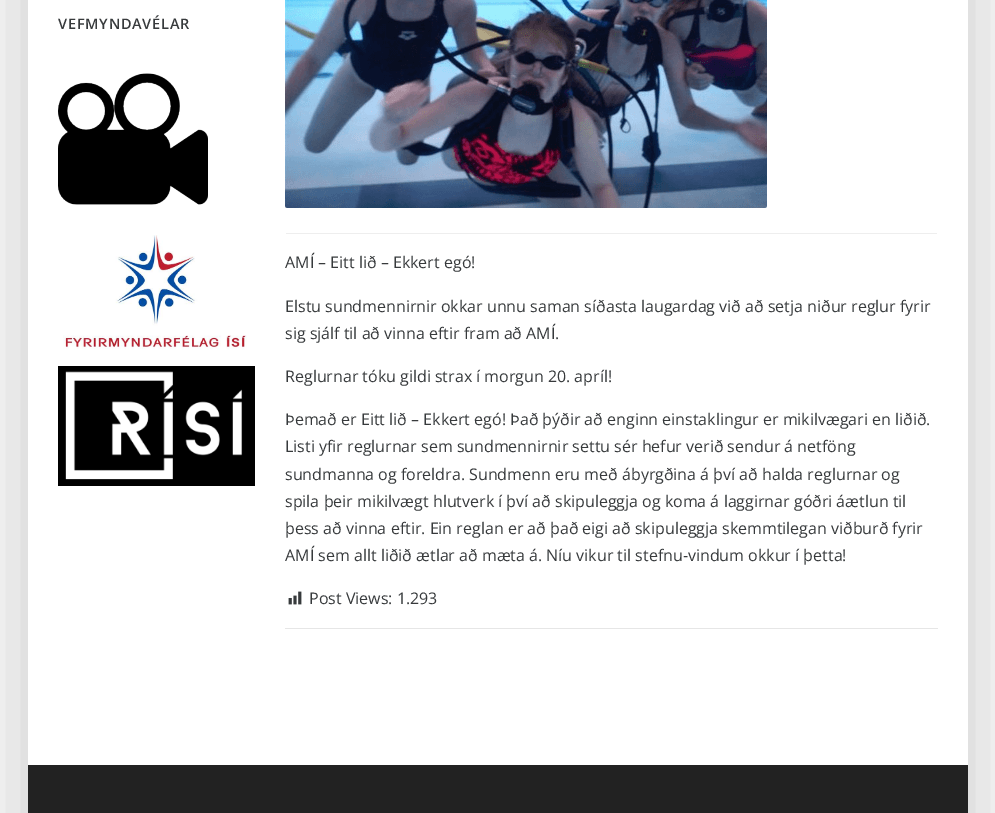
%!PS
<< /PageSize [995 813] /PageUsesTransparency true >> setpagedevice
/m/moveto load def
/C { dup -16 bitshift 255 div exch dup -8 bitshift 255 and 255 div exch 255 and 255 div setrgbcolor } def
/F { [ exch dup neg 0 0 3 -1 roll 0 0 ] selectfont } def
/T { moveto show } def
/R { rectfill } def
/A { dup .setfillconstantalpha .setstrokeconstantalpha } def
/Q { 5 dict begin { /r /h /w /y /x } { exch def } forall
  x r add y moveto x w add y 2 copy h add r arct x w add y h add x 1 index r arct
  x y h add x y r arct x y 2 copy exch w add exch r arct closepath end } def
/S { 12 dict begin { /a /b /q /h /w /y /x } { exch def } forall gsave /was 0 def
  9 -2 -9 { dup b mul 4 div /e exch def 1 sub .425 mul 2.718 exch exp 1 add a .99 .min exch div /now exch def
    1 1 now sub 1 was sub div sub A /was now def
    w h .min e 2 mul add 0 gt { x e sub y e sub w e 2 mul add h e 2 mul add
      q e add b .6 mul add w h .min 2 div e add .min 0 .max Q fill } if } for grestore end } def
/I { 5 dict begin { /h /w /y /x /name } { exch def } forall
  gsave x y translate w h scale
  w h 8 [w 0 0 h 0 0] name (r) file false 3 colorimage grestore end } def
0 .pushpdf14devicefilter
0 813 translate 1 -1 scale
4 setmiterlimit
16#F4F4F4 C
0 0 995 813 R
16#000000 C
28 -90 940 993 0 30 .15 S
16#FFFFFF C
28 0 940 765 R
/OpenSans-SemiBold 14.5 F
16#373A3C C
58 29 m .75 0 (VEFMYNDAVÉLAR) ashow
(1.rgb) 58 73 150 132 I
(2.rgb) 63 235 184 115 I
(3.rgb) 58 366 197 120 I
16#EEEEEE C
286 233 651 1 R
(4.rgb) 285 0 482 208 I
/OpenSans-Regular 16 F
16#373A3C C
(AMÍ – Eitt lið – Ekkert egó!) 285 268 T
(Elstu sundmennirnir okkar unnu saman síðasta laugardag við að setja niður reglur fyrir) 285 312 T
(sig sjálf til að vinna eftir fram að AMÍ.) 285 339 T
(Reglurnar tóku gildi strax í morgun 20. apríl!) 285 382 T
(Þemað er Eitt lið – Ekkert egó! Það þýðir að enginn einstaklingur er mikilvægari en liðið.) 285 425 T
(Listi yfir reglurnar sem sundmennirnir settu sér hefur verið sendur á netföng) 285 452 T
(sundmanna og foreldra. Sundmenn eru með ábyrgðina á því að halda reglurnar og) 285 480 T
(spila þeir mikilvægt hlutverk í því að skipuleggja og koma á laggirnar góðri áætlun til) 285 507 T
(þess að vinna eftir. Ein reglan er að það eigi að skipuleggja skemmtilegan viðburð fyrir) 285 534 T
(AMÍ sem allt liðið ætlar að mæta á. Níu vikur til stefnu-vindum okkur í þetta!) 285 561 T
(5.rgb) 288 591 14 14 I
(Post Views: 1.293) 309 604 T
16#E6E6E6 C
285 628 653 1 R
16#222222 C
28 765 940 48 R
.poppdf14devicefilter showpage
